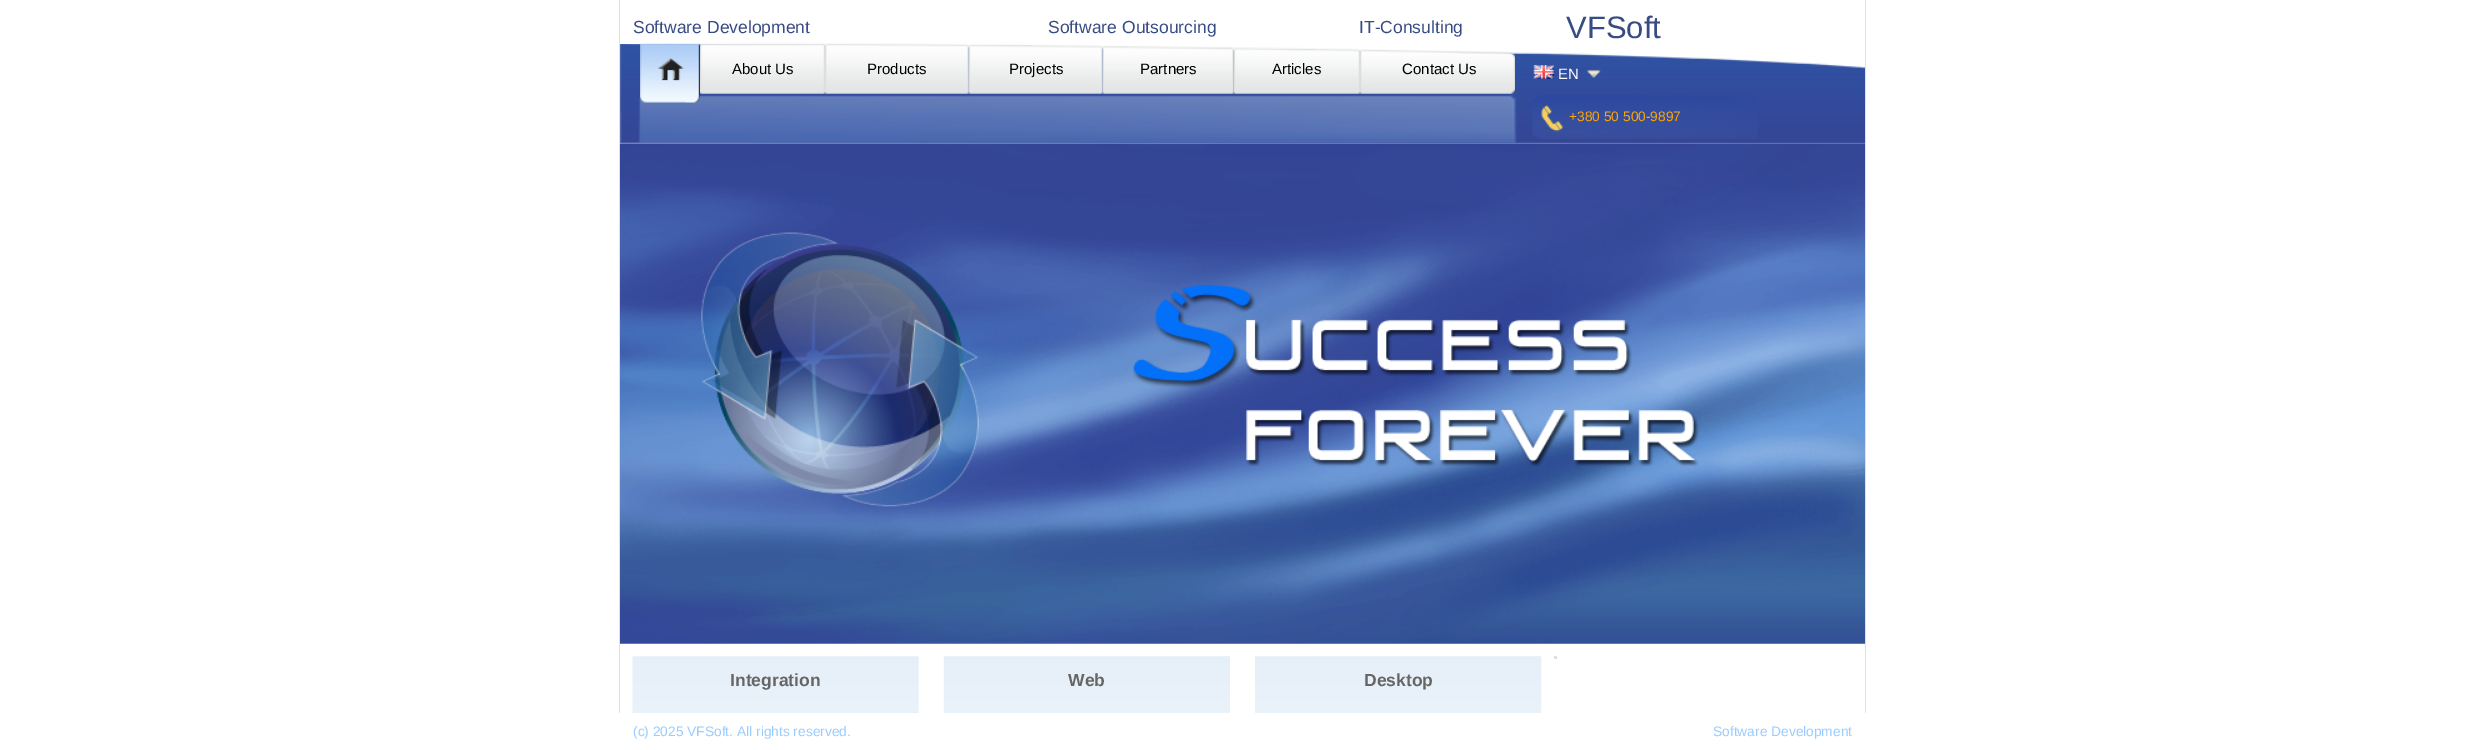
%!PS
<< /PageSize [2484 750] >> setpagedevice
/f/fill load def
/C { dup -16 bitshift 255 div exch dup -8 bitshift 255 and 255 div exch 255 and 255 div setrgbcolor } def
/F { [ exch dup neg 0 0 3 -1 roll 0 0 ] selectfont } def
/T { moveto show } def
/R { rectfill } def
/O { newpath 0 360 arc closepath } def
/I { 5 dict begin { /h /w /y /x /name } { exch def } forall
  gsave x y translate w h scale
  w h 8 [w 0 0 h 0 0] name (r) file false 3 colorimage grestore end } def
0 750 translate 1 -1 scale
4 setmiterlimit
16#FFFFFF C
0 0 2484 750 R
16#E1E1E1 C
1865 0 1 713 R
619 0 1 713 R
/LiberationSans-Regular 17.5 F
16#374B84 C
(Software Development) 633 33 T
(Software Outsourcing) 1048 33 T
(IT-Consulting) 1359 33 T
/LiberationSans-Regular 31 F
(VFSoft) 1566 38 T
(1.rgb) 620 44 1245 100 I
(2.rgb) 640 43 60 60 I
(3.rgb) 700 43 125 51 I
/LiberationSans-Regular 15 F
16#000000 C
(About Us) 732 74 T
(4.rgb) 825 43 144 51 I
(Products) 867 74 T
(5.rgb) 968 44 135 50 I
(Projects) 1009 74 T
(6.rgb) 1102 45 132 49 I
(Partners) 1140 74 T
(7.rgb) 1233 47 127 47 I
(Articles) 1272 74 T
(8.rgb) 1360 49 155 45 I
(Contact Us) 1402 74 T
(9.rgb) 1533 65 21 14 I
16#FFFFFF C
(EN) 1558 79 T
(10.rgb) 1587 69 14 9 I
(11.rgb) 1532 95 226 44 I
/LiberationSans-Regular 13.75 F
16#FFA500 C
(+380 50 500-9897) 1569 121 T
(12.rgb) 620 143 1245 501 I
(13.rgb) 701 232 278 275 I
(14.rgb) 1110 235 670 321 I
16#DDDDDD C
1555.5 657.5 1.5 O f
(15.rgb) 632 656 287 57 I
/LiberationSans-Bold 17.5 F
16#666666 C
(Integration) 730 686 T
(16.rgb) 943 656 287 57 I
(Web) 1068 686 T
(17.rgb) 1255 656 287 57 I
(Desktop) 1364 686 T
/LiberationSans-Regular 13.75 F
16#99CCFF C
(\(c\) 2025 VFSoft. All rights reserved.) 633 736 T
(Software Development) 1713 736 T
showpage
